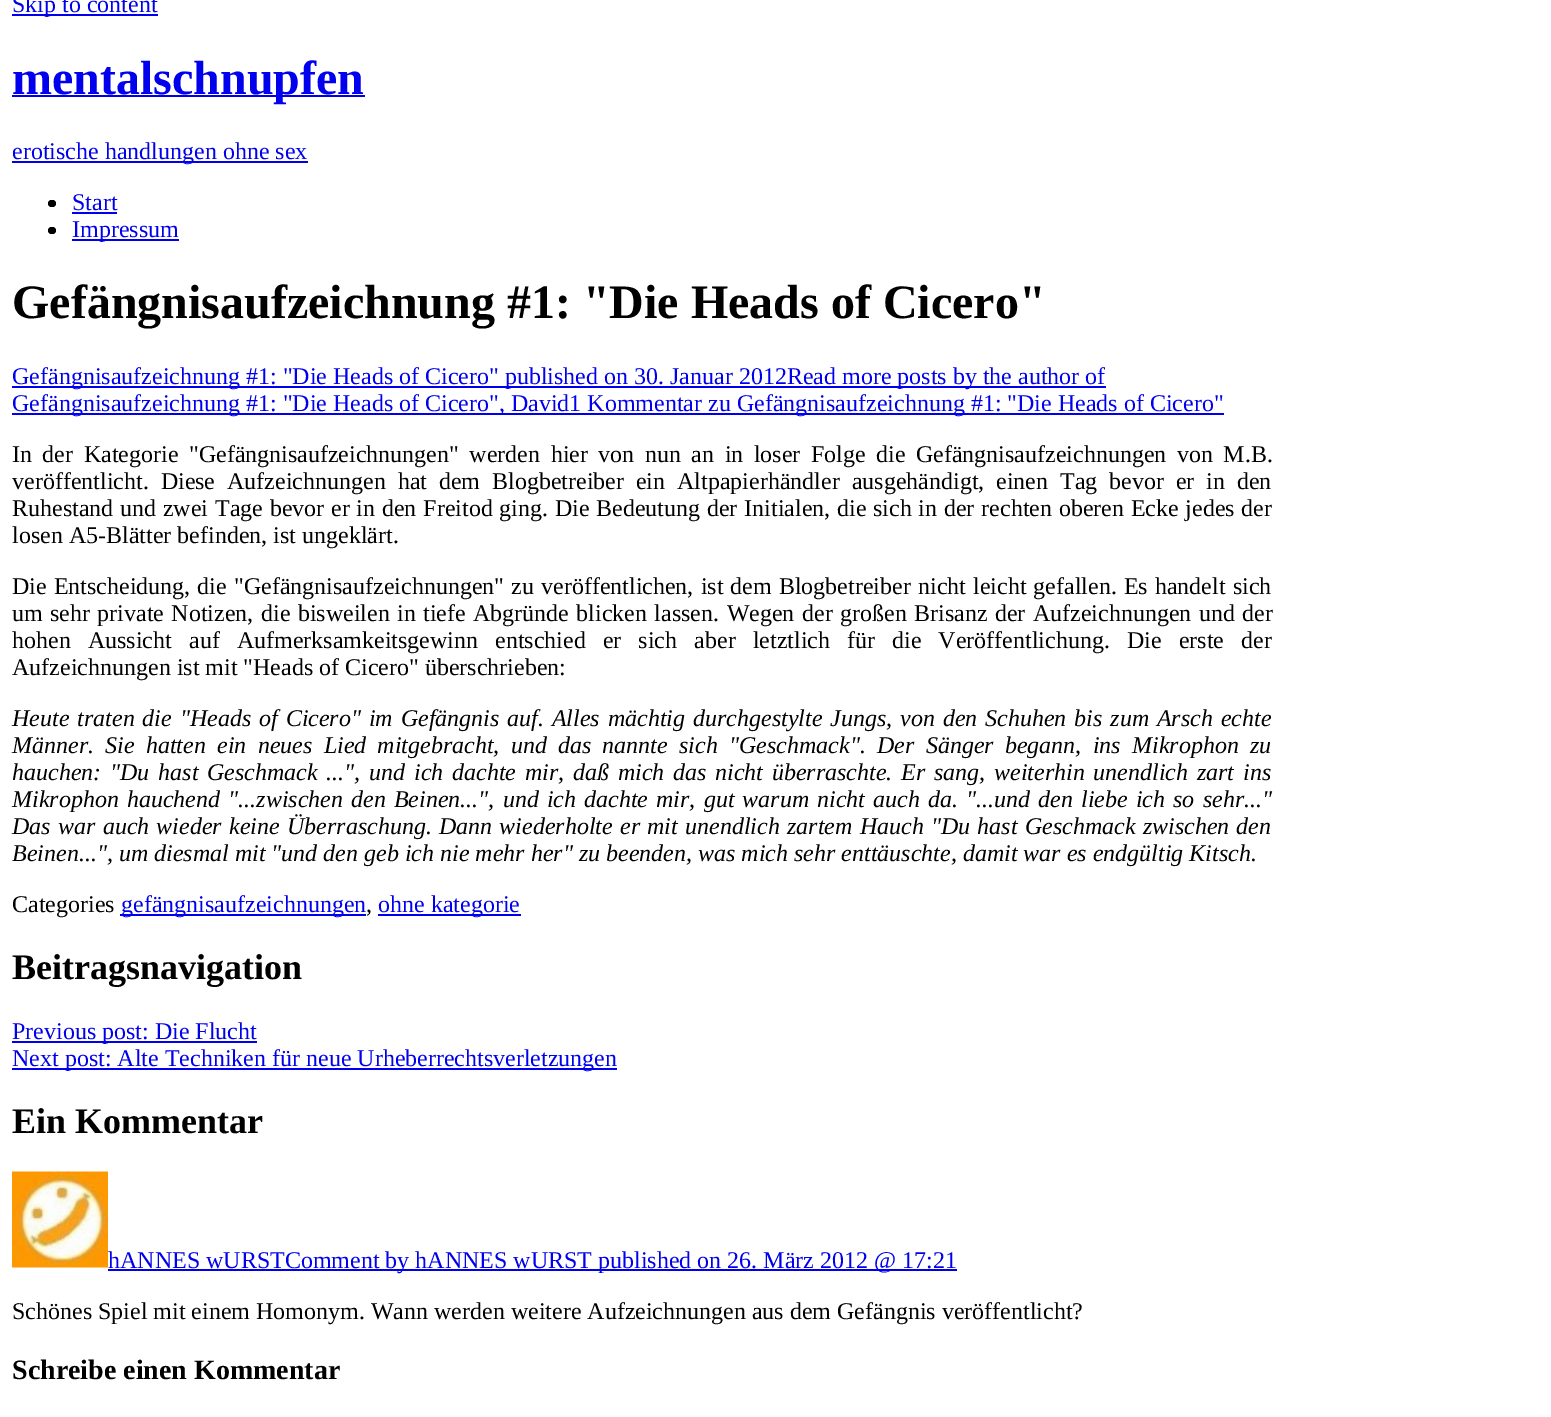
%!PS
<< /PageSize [1551 1417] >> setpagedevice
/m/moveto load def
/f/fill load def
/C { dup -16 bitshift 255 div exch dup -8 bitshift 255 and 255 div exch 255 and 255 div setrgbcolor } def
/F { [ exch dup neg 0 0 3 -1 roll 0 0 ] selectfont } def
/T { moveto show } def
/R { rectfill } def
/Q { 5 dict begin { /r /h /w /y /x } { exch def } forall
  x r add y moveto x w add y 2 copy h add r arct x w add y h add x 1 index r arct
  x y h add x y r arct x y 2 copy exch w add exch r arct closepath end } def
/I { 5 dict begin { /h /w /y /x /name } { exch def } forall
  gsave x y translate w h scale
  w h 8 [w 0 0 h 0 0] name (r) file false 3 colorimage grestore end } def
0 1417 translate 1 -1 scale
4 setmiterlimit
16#FFFFFF C
0 0 1551 1417 R
16#0000EE C
12 14 146 2 R
/LiberationSerif-Regular 24 F
(Skip to content) 12 12 T
12 95 353 2 R
/LiberationSerif-Bold 48 F
(mentalschnupfen) 12 94 T
12 161 296 2 R
/LiberationSerif-Regular 24 F
(erotische handlungen ohne sex) 12 159 T
16#000000 C
48 200 8 7 3.5 Q f
16#0000EE C
(Start) 72 210 T
72 212 45 2 R
16#000000 C
48 227 8 7 3.5 Q f
16#0000EE C
72 239 107 2 R
(Impressum) 72 237 T
/LiberationSerif-Bold 48 F
16#000000 C
(Gefängnisaufzeichnung #1: "Die Heads of Cicero") 12 318 T
16#0000EE C
12 386 1094 2 R
/LiberationSerif-Regular 24 F
(Gefängnisaufzeichnung #1: "Die Heads of Cicero" published on 30. Januar 2012Read more posts by the author of) 12 384 T
12 413 1212 2 R
(Gefängnisaufzeichnung #1: "Die Heads of Cicero", David1 Kommentar zu Gefängnisaufzeichnung #1: "Die Heads of Cicero") 12 411 T
16#000000 C
12 462 m 4.5 0 32 (In der Kategorie "Gefängnisaufzeichnungen" werden hier von nun an in loser Folge die Gefängnisaufzeichnungen von M.B.) widthshow
12 489 m 5.9 0 32 (veröffentlicht. Diese Aufzeichnungen hat dem Blogbetreiber ein Altpapierhändler ausgehändigt, einen Tag bevor er in den) widthshow
12 516 m .75 0 32 (Ruhestand und zwei Tage bevor er in den Freitod ging. Die Bedeutung der Initialen, die sich in der rechten oberen Ecke jedes der) widthshow
(losen A5-Blätter befinden, ist ungeklärt.) 12 543 T
12 594 m 1.1 0 32 (Die Entscheidung, die "Gefängnisaufzeichnungen" zu veröffentlichen, ist dem Blogbetreiber nicht leicht gefallen. Es handelt sich) widthshow
12 621 m 1.4 0 32 (um sehr private Notizen, die bisweilen in tiefe Abgründe blicken lassen. Wegen der großen Brisanz der Aufzeichnungen und der) widthshow
12 648 m 11.1 0 32 (hohen Aussicht auf Aufmerksamkeitsgewinn entschied er sich aber letztlich für die Veröffentlichung. Die erste der) widthshow
(Aufzeichnungen ist mit "Heads of Cicero" überschrieben:) 12 675 T
/LiberationSerif-Italic 24 F
12 726 m 1.9 0 32 (Heute traten die "Heads of Cicero" im Gefängnis auf. Alles mächtig durchgestylte Jungs, von den Schuhen bis zum Arsch echte) widthshow
12 753 m 5.25 0 32 (Männer. Sie hatten ein neues Lied mitgebracht, und das nannte sich "Geschmack". Der Sänger begann, ins Mikrophon zu) widthshow
12 780 m 2.75 0 32 (hauchen: "Du hast Geschmack ...", und ich dachte mir, daß mich das nicht überraschte. Er sang, weiterhin unendlich zart ins) widthshow
12 807 m 2.1 0 32 (Mikrophon hauchend "...zwischen den Beinen...", und ich dachte mir, gut warum nicht auch da. "...und den liebe ich so sehr...") widthshow
12 834 m 1.25 0 32 (Das war auch wieder keine Überraschung. Dann wiederholte er mit unendlich zartem Hauch "Du hast Geschmack zwischen den) widthshow
(Beinen...", um diesmal mit "und den geb ich nie mehr her" zu beenden, was mich sehr enttäuschte, damit war es endgültig Kitsch.) 12 861 T
/LiberationSerif-Regular 24 F
(Categories) 12 912 T
16#0000EE C
120 914 246 2 R
(gefängnisaufzeichnungen) 121 912 T
16#000000 C
(,) 366 912 T
16#0000EE C
378 914 143 2 R
(ohne kategorie) 378 912 T
/LiberationSerif-Bold 36 F
16#000000 C
(Beitragsnavigation) 12 979 T
16#0000EE C
12 1041 245 2 R
/LiberationSerif-Regular 24 F
(Previous post: Die Flucht) 12 1039 T
12 1068 605 2 R
(Next post: Alte Techniken für neue Urheberrechtsverletzungen) 12 1066 T
/LiberationSerif-Bold 36 F
16#000000 C
(Ein Kommentar) 12 1133 T
(1.rgb) 12 1171 96 97 I
16#0000EE C
108 1269 849 2 R
/LiberationSerif-Regular 24 F
(hANNES wURSTComment by hANNES wURST published on 26. März 2012 @ 17:21) 108 1268 T
16#000000 C
(Schönes Spiel mit einem Homonym. Wann werden weitere Aufzeichnungen aus dem Gefängnis veröffentlicht?) 12 1319 T
/LiberationSerif-Bold 28 F
(Schreibe einen Kommentar) 12 1379 T
showpage
